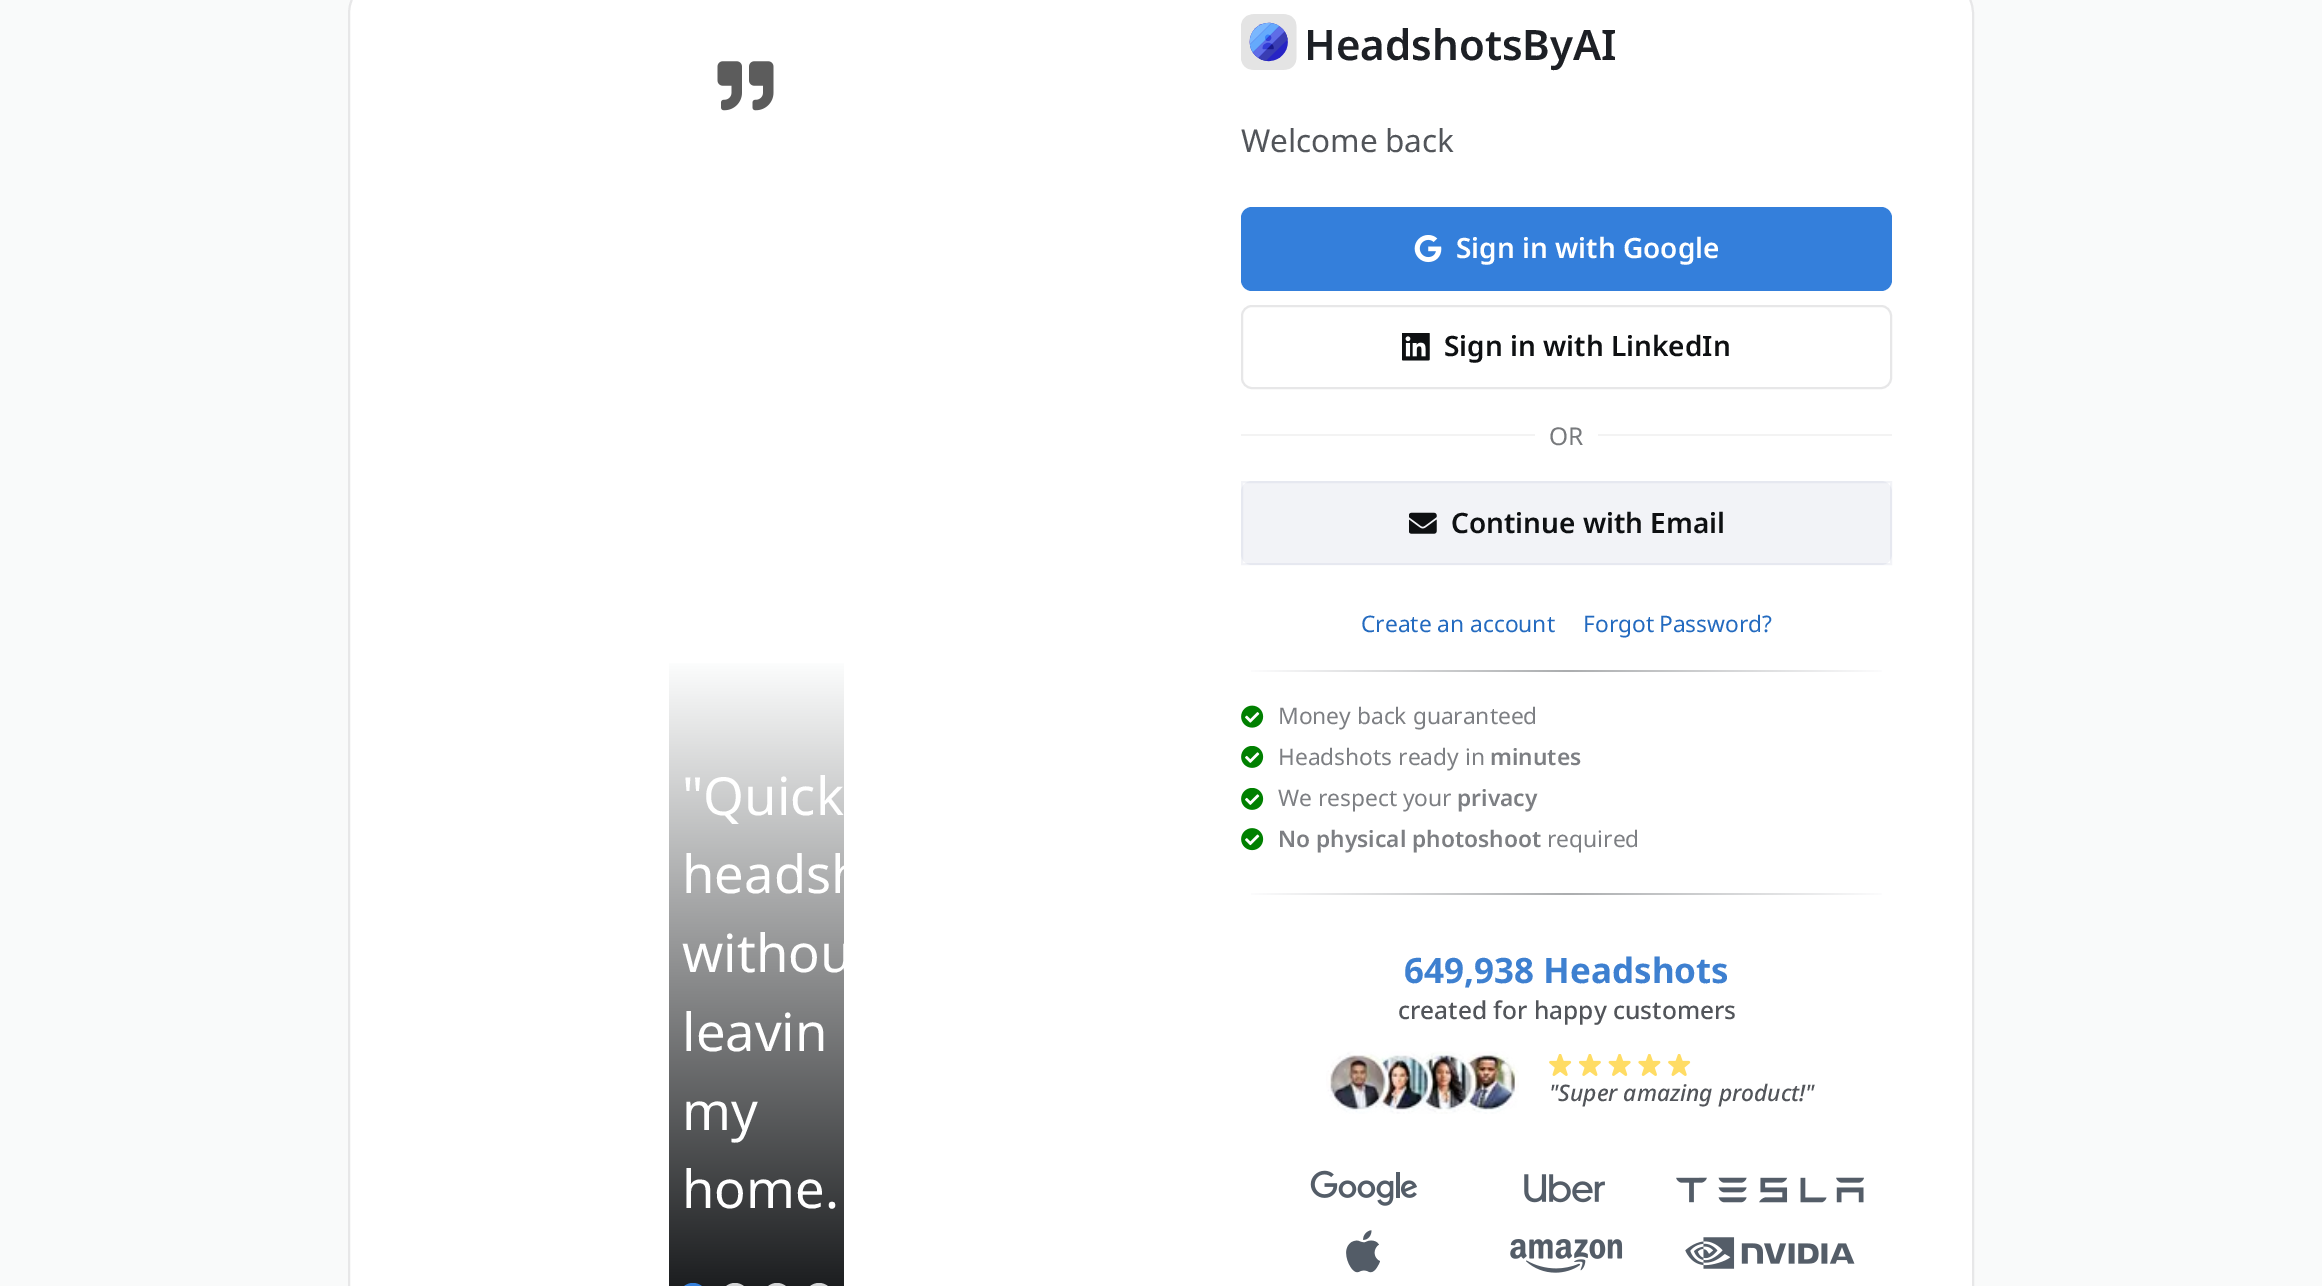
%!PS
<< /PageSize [2322 1286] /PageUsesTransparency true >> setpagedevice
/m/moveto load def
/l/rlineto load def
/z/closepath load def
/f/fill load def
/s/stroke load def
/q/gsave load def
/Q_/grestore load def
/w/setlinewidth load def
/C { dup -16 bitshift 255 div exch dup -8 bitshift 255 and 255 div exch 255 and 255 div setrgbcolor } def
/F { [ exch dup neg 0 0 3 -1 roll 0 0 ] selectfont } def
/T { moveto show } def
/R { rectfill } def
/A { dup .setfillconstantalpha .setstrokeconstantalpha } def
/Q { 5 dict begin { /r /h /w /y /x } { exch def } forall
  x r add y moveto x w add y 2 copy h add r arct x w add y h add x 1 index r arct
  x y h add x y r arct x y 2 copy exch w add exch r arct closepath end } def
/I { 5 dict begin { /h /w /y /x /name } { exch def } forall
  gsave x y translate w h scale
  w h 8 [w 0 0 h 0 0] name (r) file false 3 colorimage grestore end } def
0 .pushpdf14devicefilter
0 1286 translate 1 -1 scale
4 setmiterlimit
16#F9FAFA C
0 0 2322 1286 R
16#FFFFFF C
349 -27 1624 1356 41 Q q f Q_
16#E7E7E8 C
2 w
s
(1.rgb) 717 61 57 50 I
q 669 663 m 175 0 l 0 623 l -175 0 l z clip newpath
<< /ShadingType 2 /ColorSpace /DeviceRGB /Coords [756 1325 756 656] /Extend [true true] /Function << /FunctionType 2 /Domain [0 1] /C0 [.055 .063 .071] /C1 [1 1 1] /N 1 >> >> shfill Q_
/NotoSans-Regular 52.5 F
16#FFFFFF C
("Quick) 682 815 T
(headsh) 682 893 T
(withou) 682 972 T
(leavin) 682 1051 T
(my) 682 1130 T
(home.) 682 1208 T
16#347FDB C
679 1283 28 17 14 Q f
16#D3D4D5 C
721 1283 28 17 14 Q f
763 1283 28 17 14 Q f
805 1283 28 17 14 Q f
(2.rgb) 1241 14 56 56 I
/NotoSans-SemiBold 42 F
16#1D2025 C
(HeadshotsByAI) 1304 60 T
/NotoSans-Regular 31.5 F
16#52555A C
1241 152 m -1 0 32 (Welcome back) widthshow
16#347FDB C
1241 207 651 84 11 Q f
(3.rgb) 1414 235 28 28 I
/NotoSans-SemiBold 28 F
16#FFFFFF C
(Sign in with Google) 1456 258 T
16#E7E7E8 C
1242 306 649 82 10 Q s
(4.rgb) 1402 333 28 28 I
16#0E1012 C
(Sign in with LinkedIn) 1444 356 T
16#F3F3F3 C
1241 434 294 2 R
/NotoSans-Regular 24.5 F
16#77797C C
(OR) 1549 445 T
16#F3F3F3 C
1598 434 294 2 R
16#F2F3F7 C
1241 481 651 84 11 Q f
0.06 A
16#26377A C
1242 482 649 82 rectstroke
1 A
(5.rgb) 1409 512 28 22 I
/NotoSans-SemiBold 28 F
16#0E1012 C
(Continue with Email) 1451 533 T
/NotoSans-Regular 22.75 F
16#236ABF C
(Create an account) 1361 632 T
1583 632 m -1 0 32 (Forgot Password?) widthshow
q 1251 670 m 631 0 l 0 2 l -631 0 l z clip newpath
<< /ShadingType 2 /ColorSpace /DeviceRGB /Coords [1241 671 1892 671] /Extend [true true] /Function << /FunctionType 3 /Domain [0 1] /Functions [<< /FunctionType 2 /Domain [0 1] /C0 [1 1 1] /C1 [.671 .678 .686] /N 1 >> << /FunctionType 2 /Domain [0 1] /C0 [.671 .678 .686] /C1 [1 1 1] /N 1 >>] /Bounds [.5] /Encode [0 1 0 1] >> >> shfill Q_
(6.rgb) 1241 705 23 23 I
16#7D7F83 C
(Money back guaranteed) 1278 724 T
(7.rgb) 1241 746 23 22 I
(Headshots ready in) 1278 765 T
/NotoSans-SemiBold 22.75 F
(minutes) 1490 765 T
(7.rgb) 1241 788 23 22 I
/NotoSans-Regular 22.75 F
(We respect your) 1278 806 T
/NotoSans-SemiBold 22.75 F
(privacy) 1457 806 T
(8.rgb) 1241 828 23 23 I
(No physical photoshoot) 1278 847 T
/NotoSans-Regular 22.75 F
(required) 1547 847 T
q 1251 893 m 631 0 l 0 2 l -631 0 l z clip newpath
<< /ShadingType 2 /ColorSpace /DeviceRGB /Coords [1241 893 1892 893] /Extend [true true] /Function << /FunctionType 3 /Domain [0 1] /Functions [<< /FunctionType 2 /Domain [0 1] /C0 [1 1 1] /C1 [.671 .678 .686] /N 1 >> << /FunctionType 2 /Domain [0 1] /C0 [.671 .678 .686] /C1 [1 1 1] /N 1 >>] /Bounds [.5] /Encode [0 1 0 1] >> >> shfill Q_
/NotoSans-Bold 35 F
16#3E80D0 C
(649,938 Headshots) 1404 983 T
/NotoSans-Medium 24.5 F
16#52555A C
(created for happy customers) 1398 1019 T
(9.rgb) 1326 1051 193 63 I
(10.rgb) 1549 1054 23 22 I
(11.rgb) 1579 1054 22 22 I
(12.rgb) 1608 1054 23 22 I
(13.rgb) 1638 1054 23 22 I
(10.rgb) 1668 1054 23 22 I
/NotoSans-MediumItalic 22.75 F
("Super amazing product!") 1549 1101 T
(14.rgb) 1310 1170 107 36 I
(15.rgb) 1524 1174 81 29 I
(16.rgb) 1676 1177 188 26 I
(17.rgb) 1346 1230 34 43 I
(18.rgb) 1510 1239 113 34 I
(19.rgb) 1685 1237 170 32 I
.poppdf14devicefilter showpage
